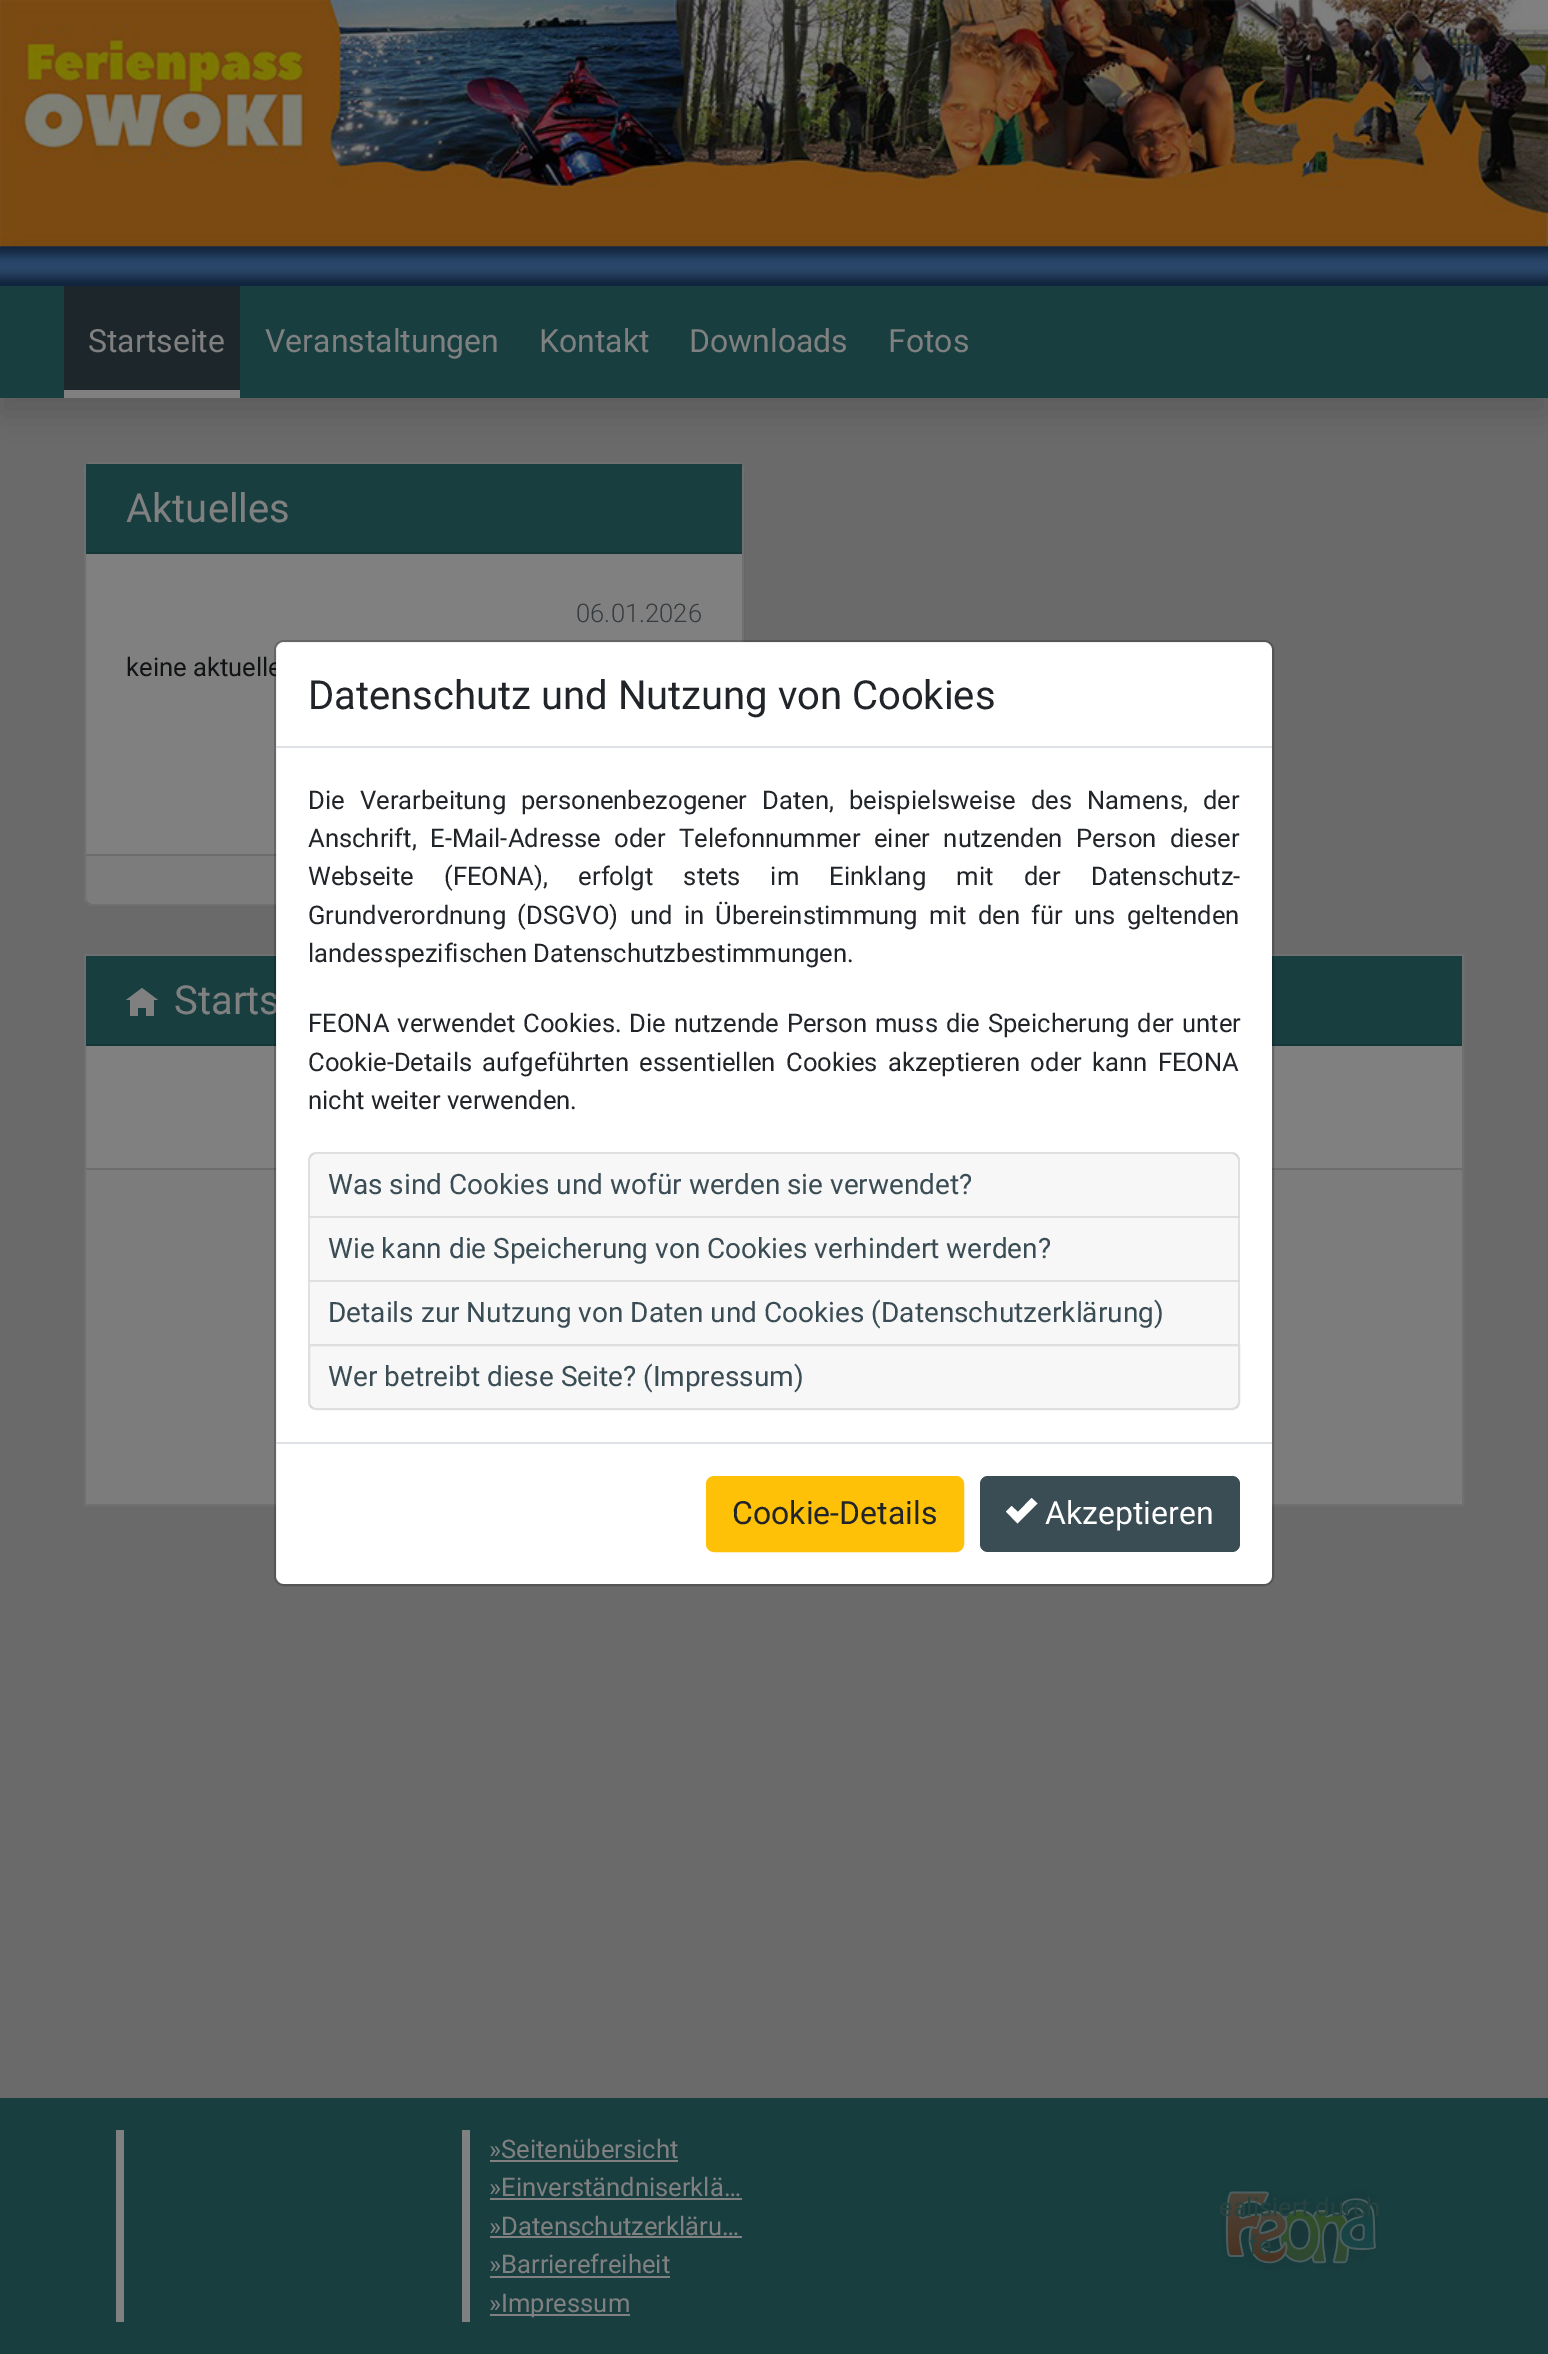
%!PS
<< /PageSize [1548 2354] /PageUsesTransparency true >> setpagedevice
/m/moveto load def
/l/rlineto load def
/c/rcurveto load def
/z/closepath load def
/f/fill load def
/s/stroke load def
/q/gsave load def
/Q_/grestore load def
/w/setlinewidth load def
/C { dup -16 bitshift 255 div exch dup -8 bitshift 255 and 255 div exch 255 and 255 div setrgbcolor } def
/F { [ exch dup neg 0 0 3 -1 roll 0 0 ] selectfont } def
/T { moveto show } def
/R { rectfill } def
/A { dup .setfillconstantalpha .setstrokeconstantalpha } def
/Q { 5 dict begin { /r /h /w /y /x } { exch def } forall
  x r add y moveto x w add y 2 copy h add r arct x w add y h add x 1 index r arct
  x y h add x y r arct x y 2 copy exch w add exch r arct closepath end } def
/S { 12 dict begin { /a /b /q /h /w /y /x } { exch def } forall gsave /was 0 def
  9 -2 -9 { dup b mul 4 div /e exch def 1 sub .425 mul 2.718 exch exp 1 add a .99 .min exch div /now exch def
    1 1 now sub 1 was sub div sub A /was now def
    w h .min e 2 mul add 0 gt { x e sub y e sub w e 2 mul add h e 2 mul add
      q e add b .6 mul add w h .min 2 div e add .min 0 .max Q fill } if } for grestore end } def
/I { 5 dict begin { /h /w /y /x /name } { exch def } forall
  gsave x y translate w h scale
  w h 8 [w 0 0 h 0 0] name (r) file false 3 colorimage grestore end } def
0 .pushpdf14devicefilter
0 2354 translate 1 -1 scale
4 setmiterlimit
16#6A6A6A C
0 0 1548 2354 R
(1.rgb) 0 0 1548 286 I
16#808080 C
84 462 660 444 8 Q f
0.12 A
16#000000 C
2 w
85 463 658 442 7 Q s
1 A
0 302 1548 112 0 16 .15 S
16#183E40 C
0 286 1548 112 R
16#1D262A C
64 286 176 104 R
16#808080 C
64 390 176 8 R
/Roboto-Regular 32 F
(Startseite) 88 352 T
(Veranstaltungen) 265 352 T
(Kontakt) 539 352 T
(Downloads) 689 352 T
(Fotos) 888 352 T
16#183E40 C
86 464 656 88 R
16#153738 C
86 552 656 2 R
/Roboto-Regular 40 F
16#808080 C
(Aktuelles) 126 522 T
/Roboto-Light 25.6 F
16#363B3F C
(06.01.2026) 576 622 T
/Roboto-Regular 25.6 F
16#111315 C
(keine aktuelle) 126 676 T
0.03 A
16#000000 C
86 856 190 48 R
1 A
16#6C6C6C C
86 854 190 2 R
16#808080 C
86 1046 1376 458 R
16#707070 C
85 955 1378 550 rectstroke
16#183E40 C
86 956 1376 88 R
16#153738 C
86 1044 1376 2 R
16#808080 C
142 988 m 16 12 l -4 0 l 0 16 l -8 0 l 0 -8 l -8 0 l 0 8 l -8 0 l 0 -16 l -4 0 l z f
/Roboto-Regular 40 F
(Starts) 174 1014 T
16#7C7C7C C
86 1168 m 1376 0 l 0 330 l 0 3.5 -2.5 6 -6 6 c -1364 0 l -3.5 0 -6 -2.5 -6 -6 c z f
16#6D6D6D C
86 1168 1376 2 R
16#FFFFFF C
276 642 996 942 8 Q f
0.2 A
16#000000 C
275 641 998 944 9 Q s
1 A
16#DEE2E6 C
276 746 996 2 R
16#212529 C
(Datenschutz und Nutzung von Cookies) 308 709 T
/Roboto-Regular 25.6 F
308 809 m 8.75 0 32 (Die Verarbeitung personenbezogener Daten, beispielsweise des Namens, der) widthshow
308 847 m 7 0 32 (Anschrift, E-Mail-Adresse oder Telefonnummer einer nutzenden Person dieser) widthshow
308 885 m 24 0 32 (Webseite \(FEONA\), erfolgt stets im Einklang mit der Datenschutz-) widthshow
308 924 m 5 0 32 (Grundverordnung \(DSGVO\) und in Übereinstimmung mit den für uns geltenden) widthshow
(landesspezifischen Datenschutzbestimmungen.) 308 962 T
308 1032 m 1.5 0 32 (FEONA verwendet Cookies. Die nutzende Person muss die Speicherung der unter) widthshow
308 1071 m 4 0 32 (Cookie-Details aufgeführten essentiellen Cookies akzeptieren oder kann FEONA) widthshow
(nicht weiter verwenden.) 308 1109 T
16#DFDFDF C
316 1152 m 916 0 l 4 0 8 4 8 8 c 0 56 l -932 0 l 0 -56 l 0 -4 4 -8 8 -8 c z 316 1154 m 916 0 l 3 0 6 3 6 6 c 0 56 l -928 0 l 0 -56 l 0 -3 3 -6 6 -6 c z eofill
0.03 A
16#000000 C
310 1154 928 62 R
/Roboto-Regular 28 F
1 A
16#3A4C54 C
(Was sind Cookies und wofür werden sie verwendet?) 328 1194 T
16#DFDFDF C
308 1216 m 932 0 l -2 2 l -928 0 l z f
0.12 A
16#000000 C
1240 1216 m 0 64 l -2 0 l 0 -62 l z f
308 1280 m 0 -64 l 2 2 l 0 62 l z f
1 A
16#F7F7F7 C
310 1218 928 62 R
16#3A4C54 C
(Wie kann die Speicherung von Cookies verhindert werden?) 328 1258 T
16#DFDFDF C
308 1280 m 932 0 l -2 2 l -928 0 l z f
0.12 A
16#000000 C
1240 1280 m 0 64 l -2 0 l 0 -62 l z f
308 1344 m 0 -64 l 2 2 l 0 62 l z f
1 A
16#F7F7F7 C
310 1282 928 62 R
16#3A4C54 C
(Details zur Nutzung von Daten und Cookies \(Datenschutzerklärung\)) 328 1322 T
16#DFDFDF C
309 1345 m 930 0 l 0 57 l 0 4 -3 7 -7 7 c -916 0 l -4 0 -7 -3 -7 -7 c z s
0.03 A
16#000000 C
310 1346 928 62 R
1 A
16#3A4C54 C
(Wer betreibt diese Seite? \(Impressum\)) 328 1386 T
16#DEE2E6 C
276 1442 996 2 R
16#FFC107 C
707 1477 256 74 7 Q q f Q_
s
/Roboto-Regular 32 F
16#212529 C
(Cookie-Details) 732 1524 T
16#3A4C54 C
980 1476 260 76 8 Q f
16#FFFFFF C
1031.5 1498 m 6 5.5 l -20 20 l -11.5 -12 l 5.5 -5.5 l 6.5 6 l z f
(Akzeptieren) 1045 1524 T
16#183E40 C
0 2098 1548 256 R
16#808080 C
116 2130 8 192 R
462 2130 8 192 R
/Roboto-Regular 25.6 F
(»Seitenübersicht) 489 2158 T
490 2160 188 2 R
(»Einverständniserklä…) 489 2196 T
490 2198 252 2 R
(»Datenschutzerkläru…) 489 2235 T
490 2236 252 2 R
(»Barrierefreiheit) 489 2273 T
490 2276 180 2 R
490 2314 140 2 R
(»Impressum) 489 2312 T
(2.rgb) 1221 2189 157 81 I
16#274340 C
(ealisiert durch) 1219 2216 T
(fe) 1249 2254 T
.poppdf14devicefilter showpage
